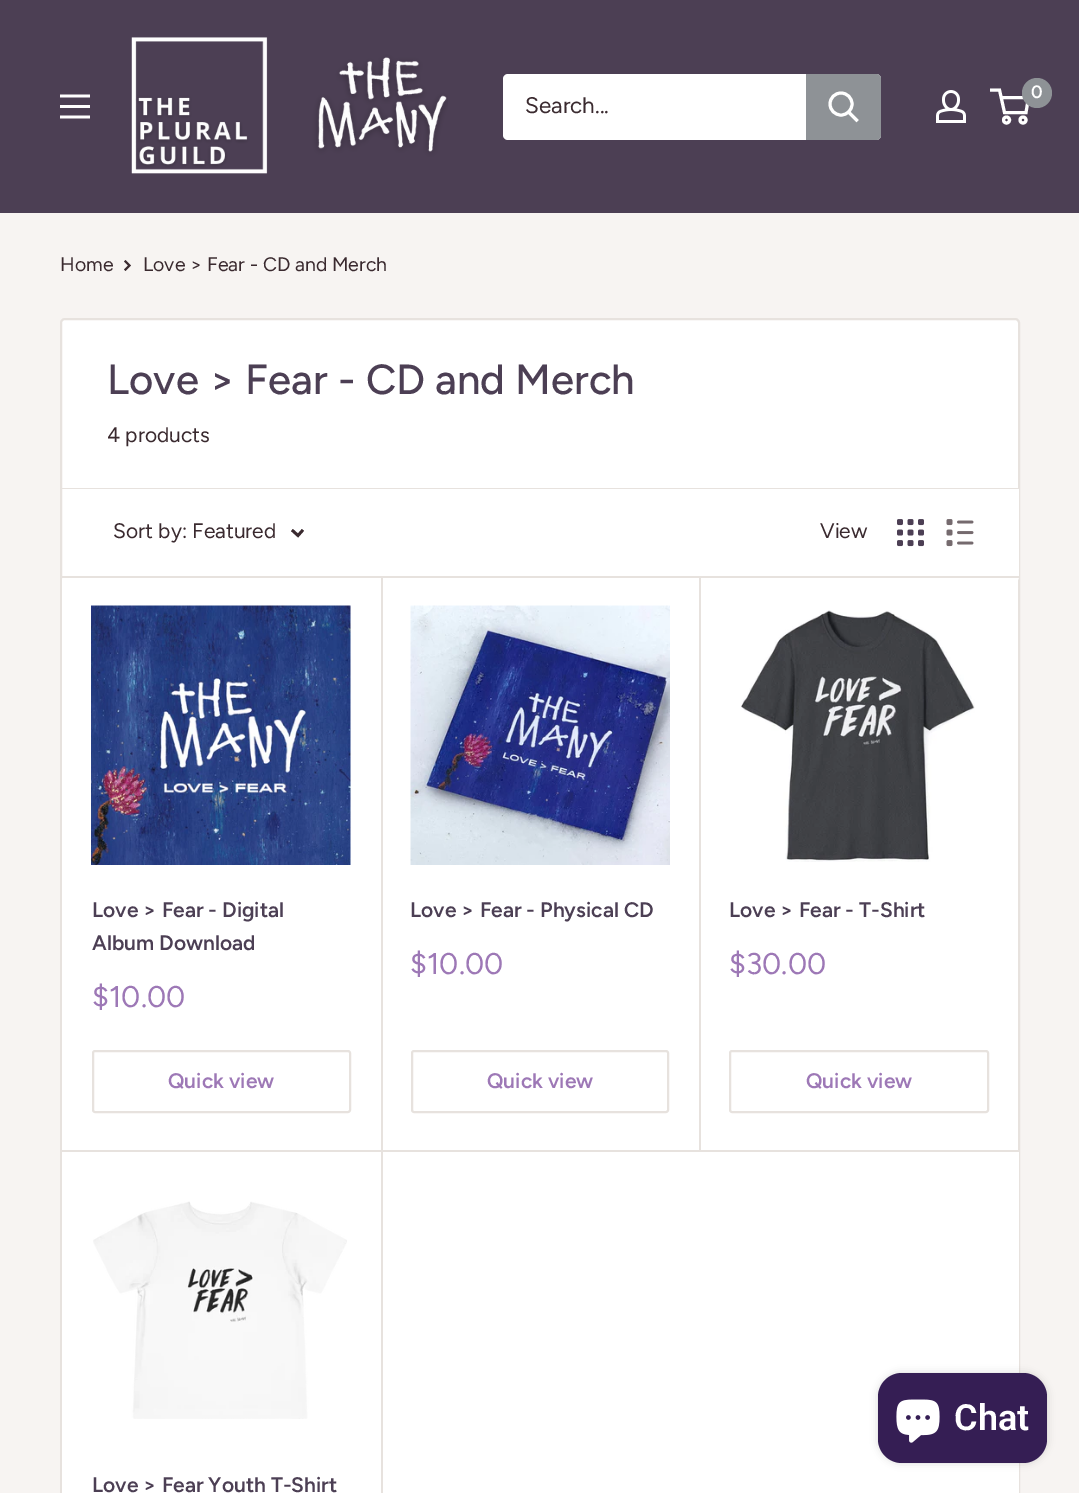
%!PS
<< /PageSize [1079 1493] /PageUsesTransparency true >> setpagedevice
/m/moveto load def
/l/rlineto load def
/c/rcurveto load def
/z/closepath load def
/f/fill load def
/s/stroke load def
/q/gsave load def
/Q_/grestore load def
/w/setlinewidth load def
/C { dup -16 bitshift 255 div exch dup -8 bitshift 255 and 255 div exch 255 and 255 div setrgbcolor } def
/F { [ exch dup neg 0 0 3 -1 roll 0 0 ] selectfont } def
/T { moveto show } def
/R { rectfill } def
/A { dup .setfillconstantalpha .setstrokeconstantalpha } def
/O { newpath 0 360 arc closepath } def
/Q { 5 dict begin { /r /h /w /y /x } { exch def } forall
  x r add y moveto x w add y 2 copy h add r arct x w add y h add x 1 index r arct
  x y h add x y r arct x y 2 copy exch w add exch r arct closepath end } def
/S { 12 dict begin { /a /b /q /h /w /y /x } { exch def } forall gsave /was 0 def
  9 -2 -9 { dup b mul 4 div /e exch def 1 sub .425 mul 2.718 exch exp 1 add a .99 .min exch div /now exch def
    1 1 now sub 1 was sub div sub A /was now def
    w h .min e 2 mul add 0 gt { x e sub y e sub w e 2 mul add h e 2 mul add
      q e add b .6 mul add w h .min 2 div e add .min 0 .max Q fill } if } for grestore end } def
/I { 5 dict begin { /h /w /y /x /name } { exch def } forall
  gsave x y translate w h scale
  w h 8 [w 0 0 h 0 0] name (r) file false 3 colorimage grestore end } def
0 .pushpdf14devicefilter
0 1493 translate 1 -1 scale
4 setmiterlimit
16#F7F4F2 C
0 0 1079 1493 R
16#4C3F54 C
0 0 1079 213 R
(1.rgb) 131 37 317 137 I
(2.rgb) 936 90 30 33 I
16#FFFFFF C
3 w
1006.5 120 3 O s
1023 120 3 O s
1001 97.5 m 27.5 0 l -2.5 15 l -21.5 0 l -5 -22.5 l -9.5 0 l s
16#8E9296 C
1037 93 15 O f
/Figtree-SemiBold 18 F
16#FFFFFF C
(0) 1031 98 T
(3.rgb) 60 94 30 25 I
503 74 378 66 5 Q f
/Figtree-Regular 22.5 F
16#3A2A2F C
(Search...) 525 113 T
16#8E9296 C
806 74 m 70 0 l 3 0 5 2 5 5 c 0 56 l 0 3 -2 5 -5 5 c -70 0 l z f
16#FFFFFF C
2 setlinecap
856.5 120 m -7.5 -7.5 l s
0 setlinecap
841 104 11 O s
/Figtree-Regular 19.5 F
16#3A2A2F C
(Home) 60 271 T
2 w
2 setlinecap
125.5 261.5 m 4 4 l -4 4 l s
(Love > Fear - CD and Merch) 143 271 T
16#FFFFFF C
61 319 958 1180 4 Q q f Q_
16#E7E2DE C
0 setlinecap
s
/Figtree-Medium 42 F
16#4C3F54 C
(Love > Fear - CD and Merch) 107 394 T
/Figtree-Regular 21 F
16#3A2A2F C
(4 products) 107 442 T
16#E7E2DE C
62 488 m 0 1 l 956 0 l 0 86 l 1 0 l 0 -87 l z f
16#FFFFFF C
62 576 957 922 5 Q f
16#E7E2DE C
62 1150 319 2 R
(6.rgb) 91 605 260 260 I
/Figtree-SemiBold 21 F
16#4C3F54 C
(Love > Fear - Digital) 92 917 T
(Album Download) 92 950 T
/Figtree-Regular 30 F
16#9D78B6 C
($10.00) 92 1007 T
16#E7E2DE C
93 1051 257 61 2 Q s
/Figtree-SemiBold 21 F
16#9D78B6 C
(Quick view) 168 1088 T
16#E7E2DE C
63 1150 m 0 1 l 320 0 l 0 -575 l -2 0 l 0 574 l z f
381 1150 318 2 R
(7.rgb) 410 605 260 260 I
16#4C3F54 C
(Love > Fear - Physical CD) 410 917 T
/Figtree-Regular 30 F
16#9D78B6 C
($10.00) 410 974 T
16#E7E2DE C
412 1051 256 61 2 Q s
/Figtree-SemiBold 21 F
16#9D78B6 C
(Quick view) 487 1088 T
16#FFFFFF C
699 576 m 315 0 l 3 0 5 2 5 5 c 0 570 l -320 0 l z f
16#E7E2DE C
383 1150 m 0 1 l 318 0 l 0 -575 l -2 0 l 0 574 l z f
62 576 m 0 2 l 957 0 l 0 -87 l -1 0 l 0 85 l z f
16#FFFFFF C
1018 489 1 87 R
/Figtree-Regular 21 F
16#3A2A2F C
(Sort by: Featured) 113 538 T
2.8 w
2 setlinecap
302 531 m -4 4.5 l -5 -4.5 l s
(View) 820 538 T
(4.rgb) 897 519 27 28 I
(5.rgb) 946 519 28 28 I
(8.rgb) 741 610 234 252 I
/Figtree-SemiBold 21 F
16#4C3F54 C
(Love > Fear - T-Shirt) 729 917 T
/Figtree-Regular 30 F
16#9D78B6 C
($30.00) 729 974 T
16#E7E2DE C
2 w
0 setlinecap
730 1051 258 61 2 Q s
/Figtree-SemiBold 21 F
16#9D78B6 C
(Quick view) 806 1088 T
16#E7E2DE C
699 1150 m 0 2 l 320 0 l 0 -571 l -1 -2 l 0 571 l z f
701 1150 m 0 1 l 318 0 l 0 -570 l -1 -2 l 0 571 l z f
(9.rgb) 93 1201 254 218 I
381 1151 2 342 R
16#4C3F54 C
(Love > Fear Youth T-Shirt) 92 1492 T
16#000000 C
878 1373 169 90 24 4 .15 S
16#351E54 C
878 1373 169 90 24 Q f
(10.rgb) 896 1399 44 44 I
/Roboto-SemiBold 36 F
16#FFFFFF C
(Chat) 954 1430 T
.poppdf14devicefilter showpage
